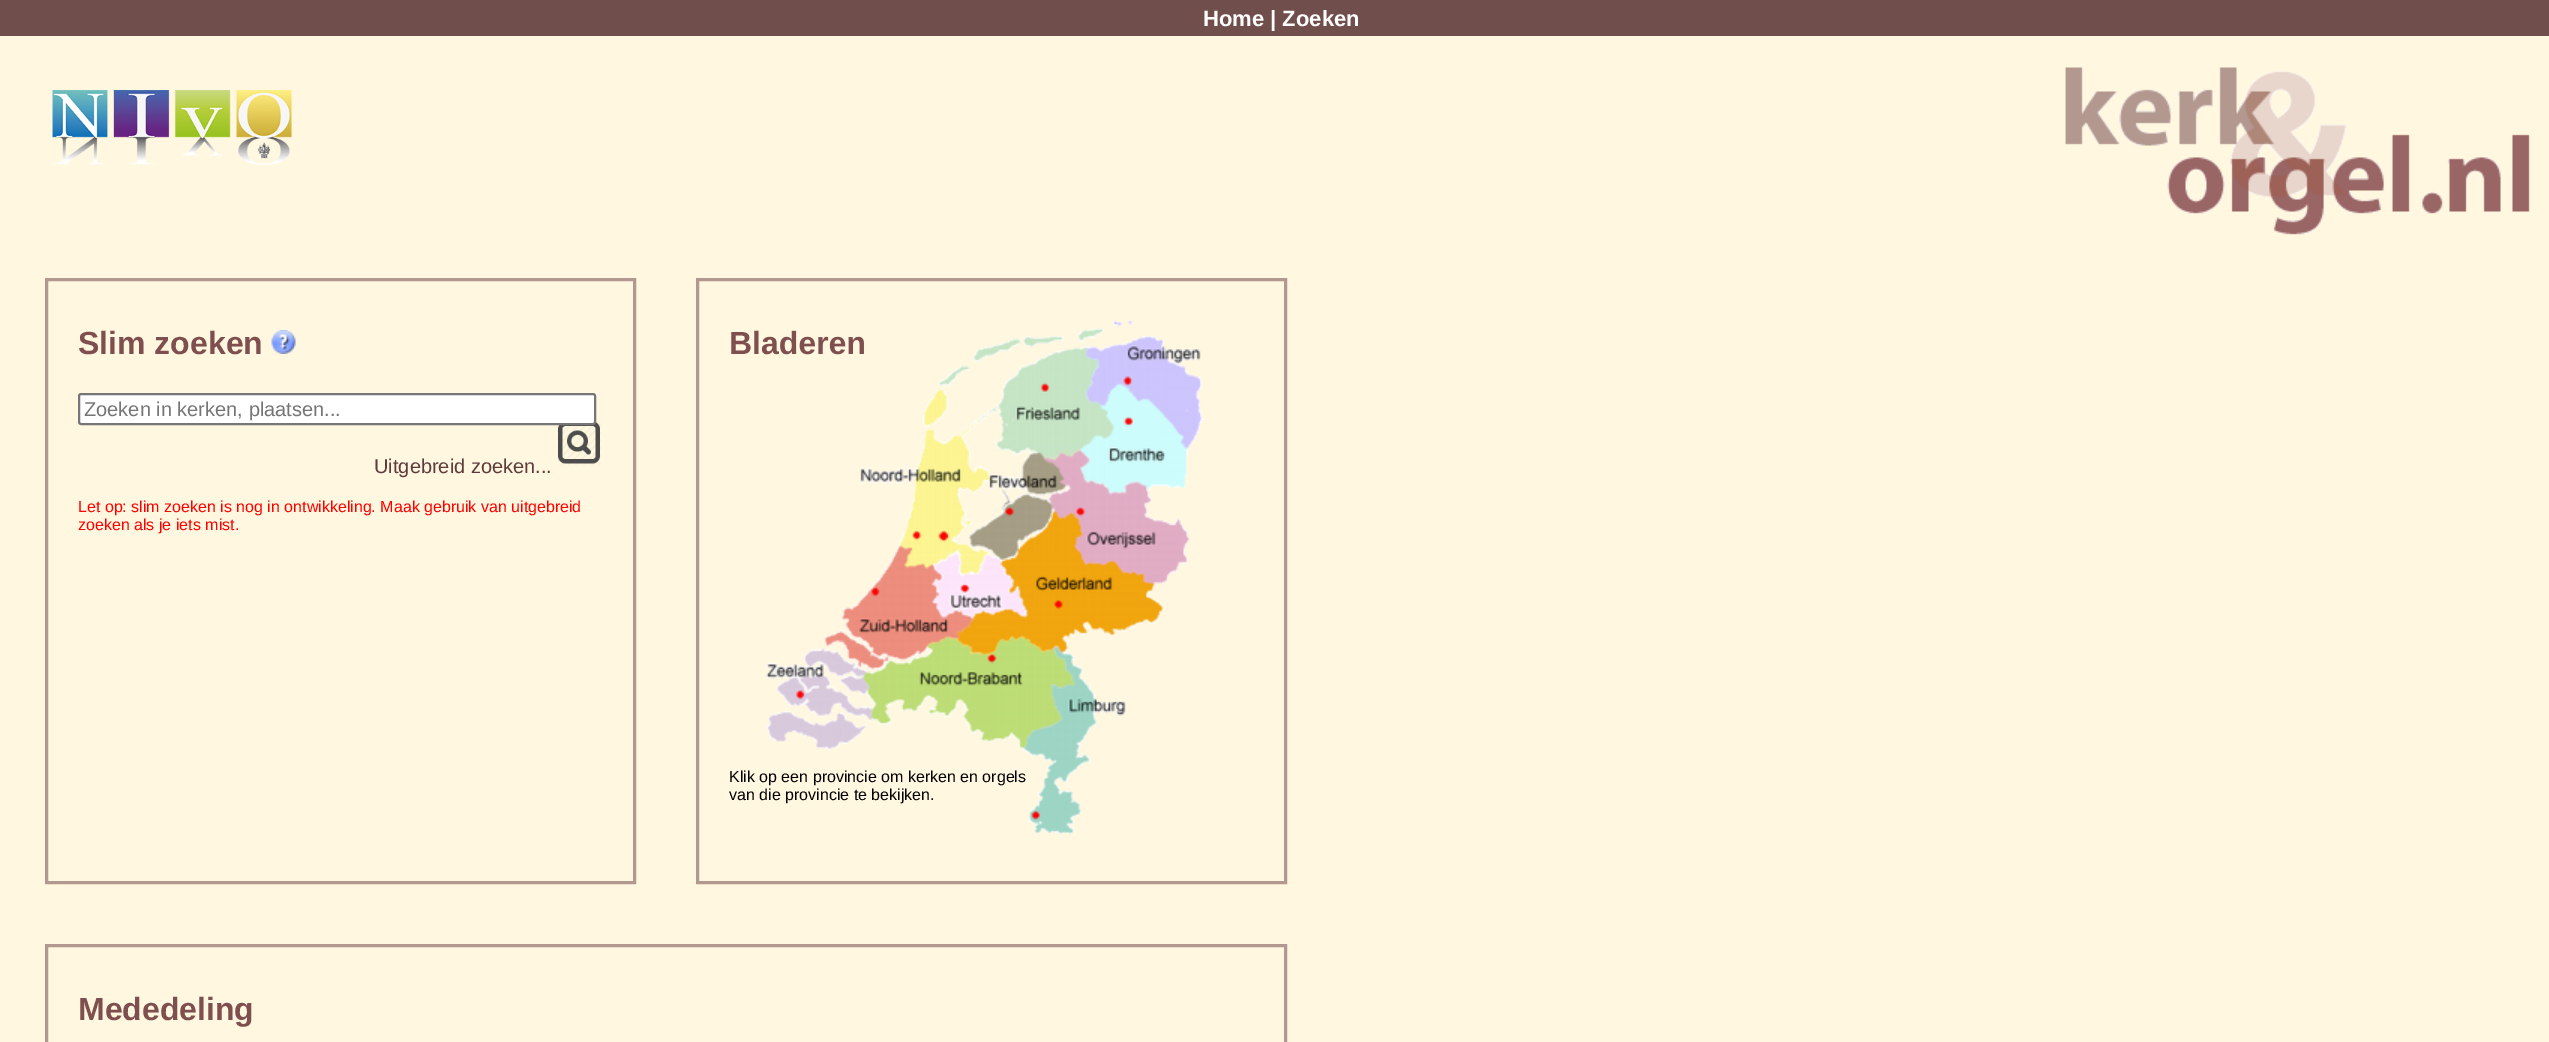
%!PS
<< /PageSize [2549 1042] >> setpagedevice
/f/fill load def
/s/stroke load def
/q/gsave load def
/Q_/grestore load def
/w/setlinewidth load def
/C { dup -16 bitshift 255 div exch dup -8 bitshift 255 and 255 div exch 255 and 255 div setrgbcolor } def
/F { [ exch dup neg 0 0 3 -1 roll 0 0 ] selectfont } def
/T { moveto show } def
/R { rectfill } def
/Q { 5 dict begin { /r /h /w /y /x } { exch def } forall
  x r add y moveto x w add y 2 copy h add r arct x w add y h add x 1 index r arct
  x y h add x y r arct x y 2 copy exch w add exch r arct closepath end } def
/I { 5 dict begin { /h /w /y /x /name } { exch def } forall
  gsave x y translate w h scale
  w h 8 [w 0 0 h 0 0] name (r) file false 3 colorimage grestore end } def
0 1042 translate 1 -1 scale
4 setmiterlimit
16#FFF7DF C
0 0 2549 1042 R
16#6F4E4B C
0 0 2549 36 R
/LiberationSans-Bold 22 F
16#FFFEFC C
(Home | Zoeken) 1203 26 T
(1.rgb) 52 90 240 75 I
(2.rgb) 2065 67 465 168 I
16#B39890 C
3 w
46.5 279.5 588 603 rectstroke
/LiberationSans-Bold 32 F
16#7F4F4F C
(Slim zoeken) 78 354 T
(3.rgb) 271 330 25 24 I
(4.rgb) 557 421 44 44 I
16#FFFFFF C
79 394 516 30 2 Q q f Q_
16#767676 C
2 w
s
/LiberationSans-Regular 20 F
16#757575 C
(Zoeken in kerken, plaatsen...) 84 416 T
16#5F3B3B C
(Uitgebreid zoeken...) 374 473 T
/LiberationSans-Regular 16 F
16#FF0000 C
(Let op: slim zoeken is nog in ontwikkeling. Maak gebruik van uitgebreid) 78 512 T
(zoeken als je iets mist.) 78 530 T
16#B39890 C
3 w
697.5 279.5 588 603 rectstroke
/LiberationSans-Bold 32 F
16#7F4F4F C
(Bladeren) 729 354 T
(5.rgb) 766 319 438 516 I
/LiberationSans-Regular 16 F
16#000000 C
(Klik op een provincie om kerken en orgels) 729 782 T
(van die provincie te bekijken.) 729 800 T
16#B39890 C
46.5 945.5 1239 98 rectstroke
/LiberationSans-Bold 32 F
16#7F4F4F C
(Mededeling) 78 1020 T
showpage
